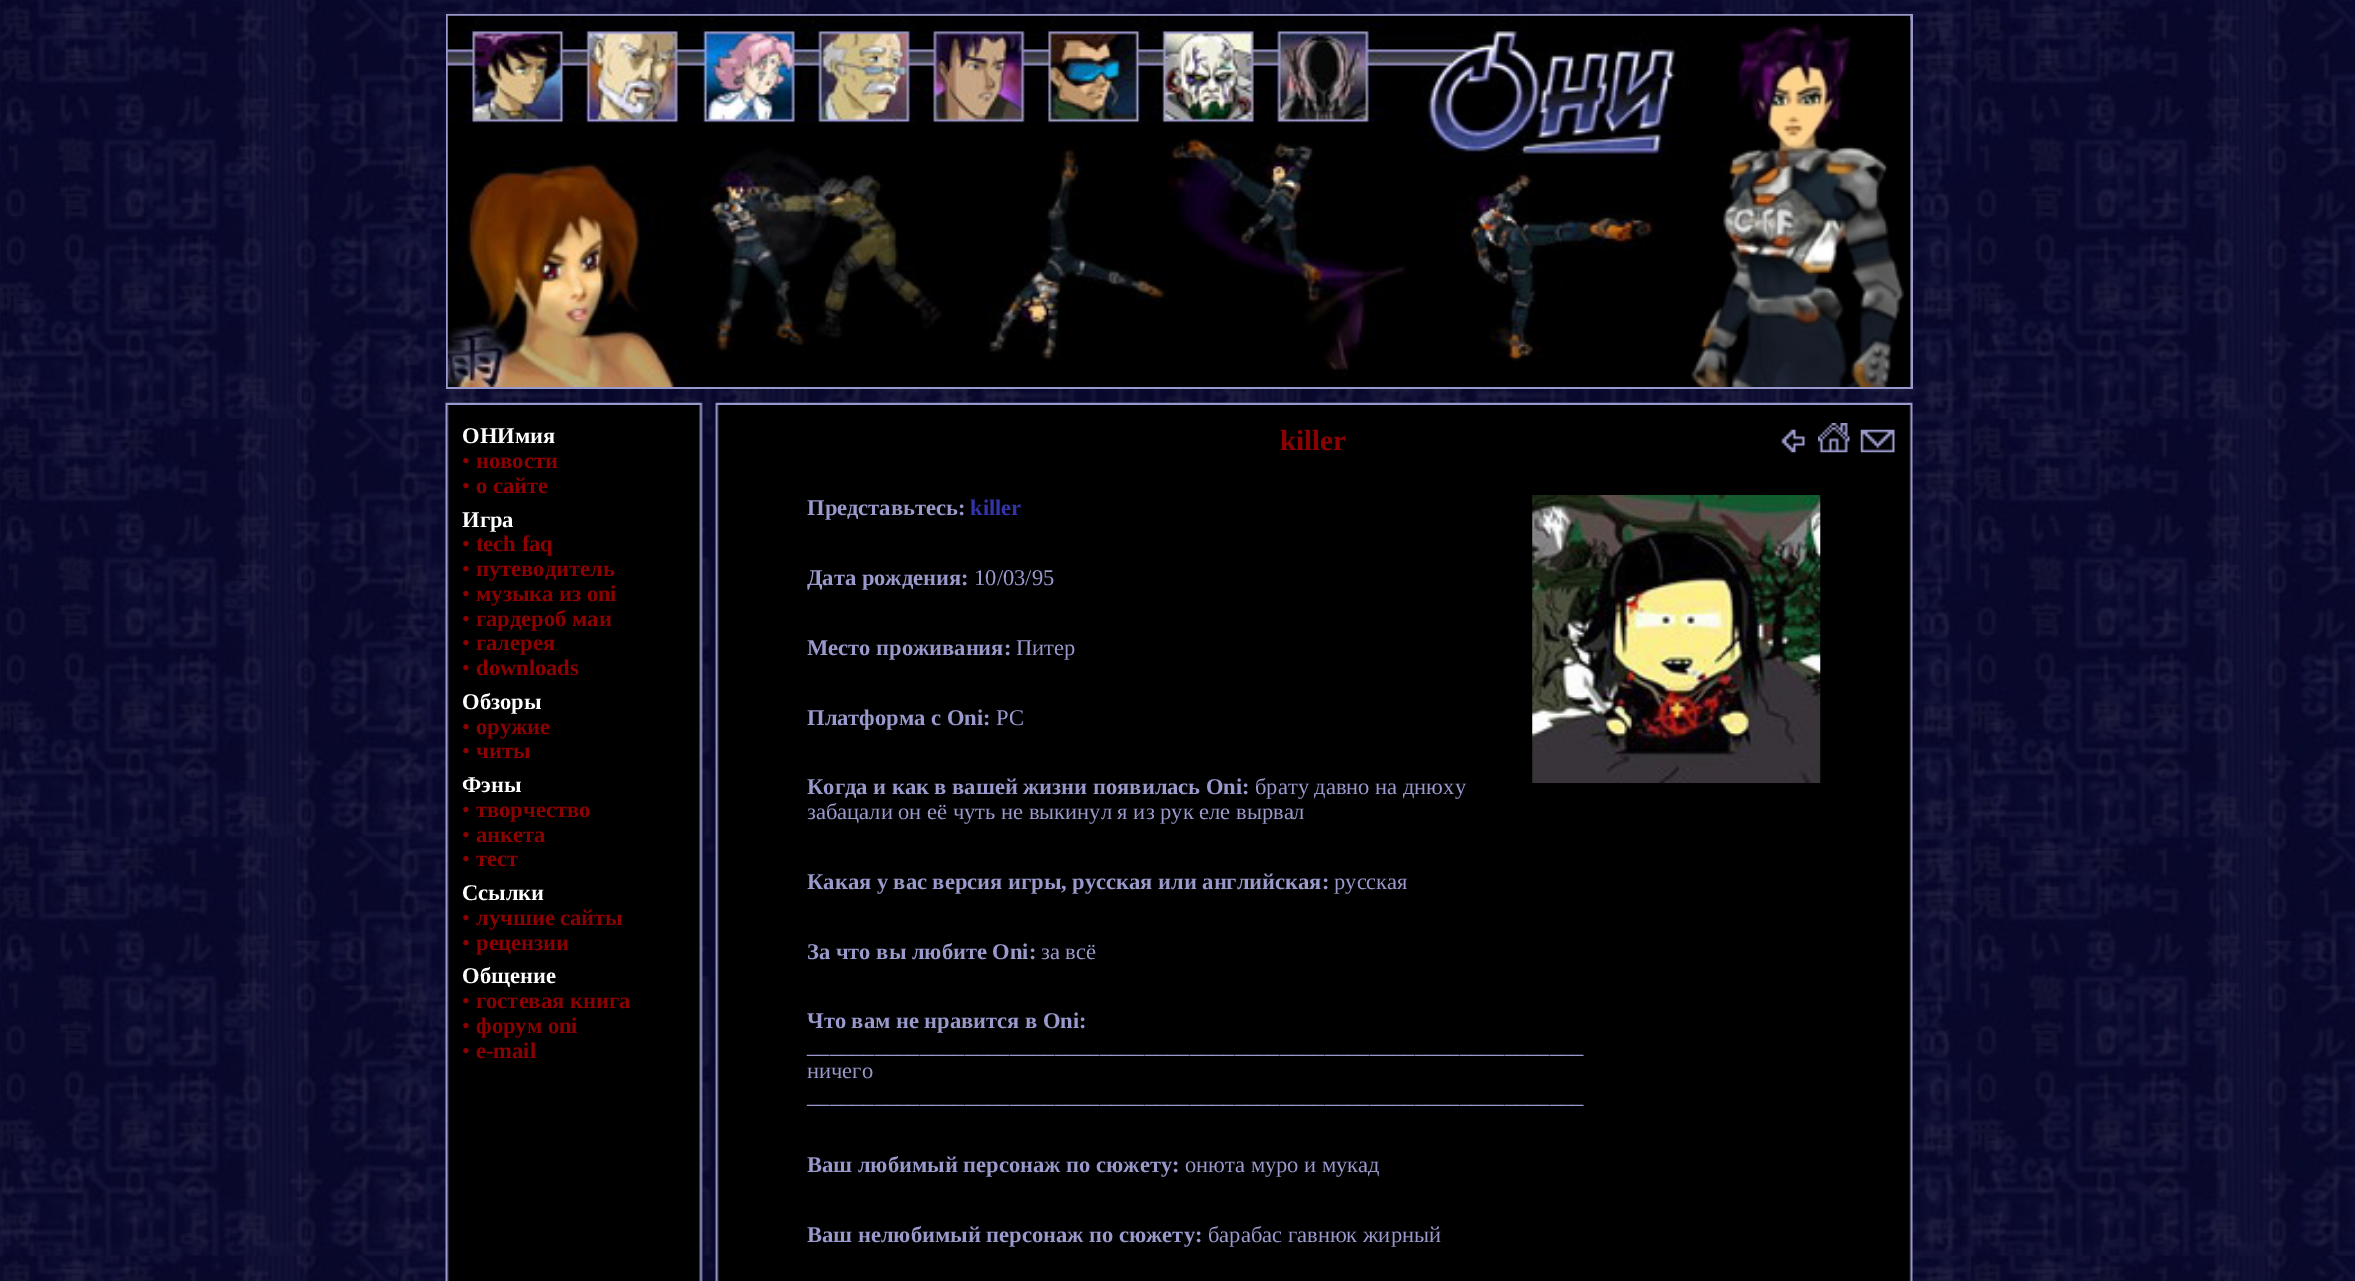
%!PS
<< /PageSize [2355 1281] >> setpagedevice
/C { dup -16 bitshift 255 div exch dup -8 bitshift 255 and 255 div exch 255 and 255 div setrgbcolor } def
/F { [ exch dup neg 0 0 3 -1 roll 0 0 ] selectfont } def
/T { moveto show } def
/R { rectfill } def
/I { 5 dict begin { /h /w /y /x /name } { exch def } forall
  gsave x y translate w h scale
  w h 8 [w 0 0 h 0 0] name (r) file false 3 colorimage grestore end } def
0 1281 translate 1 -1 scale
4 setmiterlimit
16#FFFFFF C
0 0 2355 1281 R
(1.rgb) 0 0 2355 1281 I
16#9999CC C
446 14 1467 375 R
(2.rgb) 447 15 1464 372 I
(3.rgb) 1691 20 220 367 I
(4.rgb) 445 402 1468 3 I
(5.rgb) 445 405 1468 876 I
/LiberationSerif-Bold 22.5 F
16#FFFFFF C
(ОНИмия) 462 443 T
/LiberationSerif-Regular 22.5 F
16#8B0000 C
(•) 462 468 T
/LiberationSerif-Bold 22.5 F
(новости) 476 468 T
/LiberationSerif-Regular 22.5 F
(•) 462 493 T
/LiberationSerif-Bold 22.5 F
(о сайте) 476 493 T
16#FFFFFF C
(Игра) 462 527 T
/LiberationSerif-Regular 22.5 F
16#8B0000 C
(•) 462 551 T
/LiberationSerif-Bold 22.5 F
(tech faq) 476 551 T
/LiberationSerif-Regular 22.5 F
(•) 462 576 T
/LiberationSerif-Bold 22.5 F
(путеводитель) 476 576 T
/LiberationSerif-Regular 22.5 F
(•) 462 601 T
/LiberationSerif-Bold 22.5 F
(музыка из oni) 476 601 T
/LiberationSerif-Regular 22.5 F
(•) 462 626 T
/LiberationSerif-Bold 22.5 F
(гардероб маи) 476 626 T
/LiberationSerif-Regular 22.5 F
(•) 462 650 T
/LiberationSerif-Bold 22.5 F
(галерея) 476 650 T
/LiberationSerif-Regular 22.5 F
(•) 462 675 T
/LiberationSerif-Bold 22.5 F
(downloads) 476 675 T
16#FFFFFF C
(Обзоры) 462 709 T
/LiberationSerif-Regular 22.5 F
16#8B0000 C
(•) 462 734 T
/LiberationSerif-Bold 22.5 F
(оружие) 476 734 T
/LiberationSerif-Regular 22.5 F
(•) 462 758 T
/LiberationSerif-Bold 22.5 F
(читы) 476 758 T
16#FFFFFF C
(Фэны) 462 792 T
/LiberationSerif-Regular 22.5 F
16#8B0000 C
(•) 462 817 T
/LiberationSerif-Bold 22.5 F
(творчество) 476 817 T
/LiberationSerif-Regular 22.5 F
(•) 462 842 T
/LiberationSerif-Bold 22.5 F
(анкета) 476 842 T
/LiberationSerif-Regular 22.5 F
(•) 462 866 T
/LiberationSerif-Bold 22.5 F
(тест) 476 866 T
16#FFFFFF C
(Ссылки) 462 900 T
/LiberationSerif-Regular 22.5 F
16#8B0000 C
(•) 462 925 T
/LiberationSerif-Bold 22.5 F
(лучшие сайты) 476 925 T
/LiberationSerif-Regular 22.5 F
(•) 462 950 T
/LiberationSerif-Bold 22.5 F
(рецензии) 476 950 T
16#FFFFFF C
(Общение) 462 983 T
/LiberationSerif-Regular 22.5 F
16#8B0000 C
(•) 462 1008 T
/LiberationSerif-Bold 22.5 F
(гостевая книга) 476 1008 T
/LiberationSerif-Regular 22.5 F
(•) 462 1033 T
/LiberationSerif-Bold 22.5 F
(форум oni) 476 1033 T
/LiberationSerif-Regular 22.5 F
(•) 462 1058 T
/LiberationSerif-Bold 22.5 F
(e-mail) 476 1058 T
/LiberationSerif-Bold 29 F
(killer) 1280 450 T
(6.rgb) 1781 429 25 24 I
(7.rgb) 1818 423 32 30 I
(8.rgb) 1860 429 35 24 I
/LiberationSerif-Bold 22.5 F
16#9999CC C
(Представьтесь:) 807 515 T
16#3333AA C
(killer) 970 515 T
(9.rgb) 1532 495 289 288 I
16#9999CC C
(Дата рождения:) 807 585 T
/LiberationSerif-Regular 22.5 F
(10/03/95) 974 585 T
/LiberationSerif-Bold 22.5 F
(Место проживания:) 807 655 T
/LiberationSerif-Regular 22.5 F
(Питер) 1016 655 T
/LiberationSerif-Bold 22.5 F
(Платформа с Oni:) 807 725 T
/LiberationSerif-Regular 22.5 F
(PC) 996 725 T
/LiberationSerif-Bold 22.5 F
(Когда и как в вашей жизни появилась Oni:) 807 794 T
/LiberationSerif-Regular 22.5 F
(брату давно на днюху) 1255 794 T
(забацали он её чуть не выкинул я из рук еле вырвал) 807 819 T
/LiberationSerif-Bold 22.5 F
(Какая у вас версия игры, русская или английская:) 807 889 T
/LiberationSerif-Regular 22.5 F
(русская) 1334 889 T
/LiberationSerif-Bold 22.5 F
(За что вы любите Oni:) 807 959 T
/LiberationSerif-Regular 22.5 F
(за всё) 1041 959 T
/LiberationSerif-Bold 22.5 F
(Что вам не нравится в Oni:) 807 1028 T
/LiberationSerif-Regular 22.5 F
(_____________________________________________________________________) 807 1053 T
(ничего) 807 1078 T
(_____________________________________________________________________) 807 1103 T
/LiberationSerif-Bold 22.5 F
(Ваш любимый персонаж по сюжету:) 807 1172 T
/LiberationSerif-Regular 22.5 F
(онюта муро и мукад) 1185 1172 T
/LiberationSerif-Bold 22.5 F
(Ваш нелюбимый персонаж по сюжету:) 807 1242 T
/LiberationSerif-Regular 22.5 F
(барабас гавнюк жирный) 1208 1242 T
showpage
